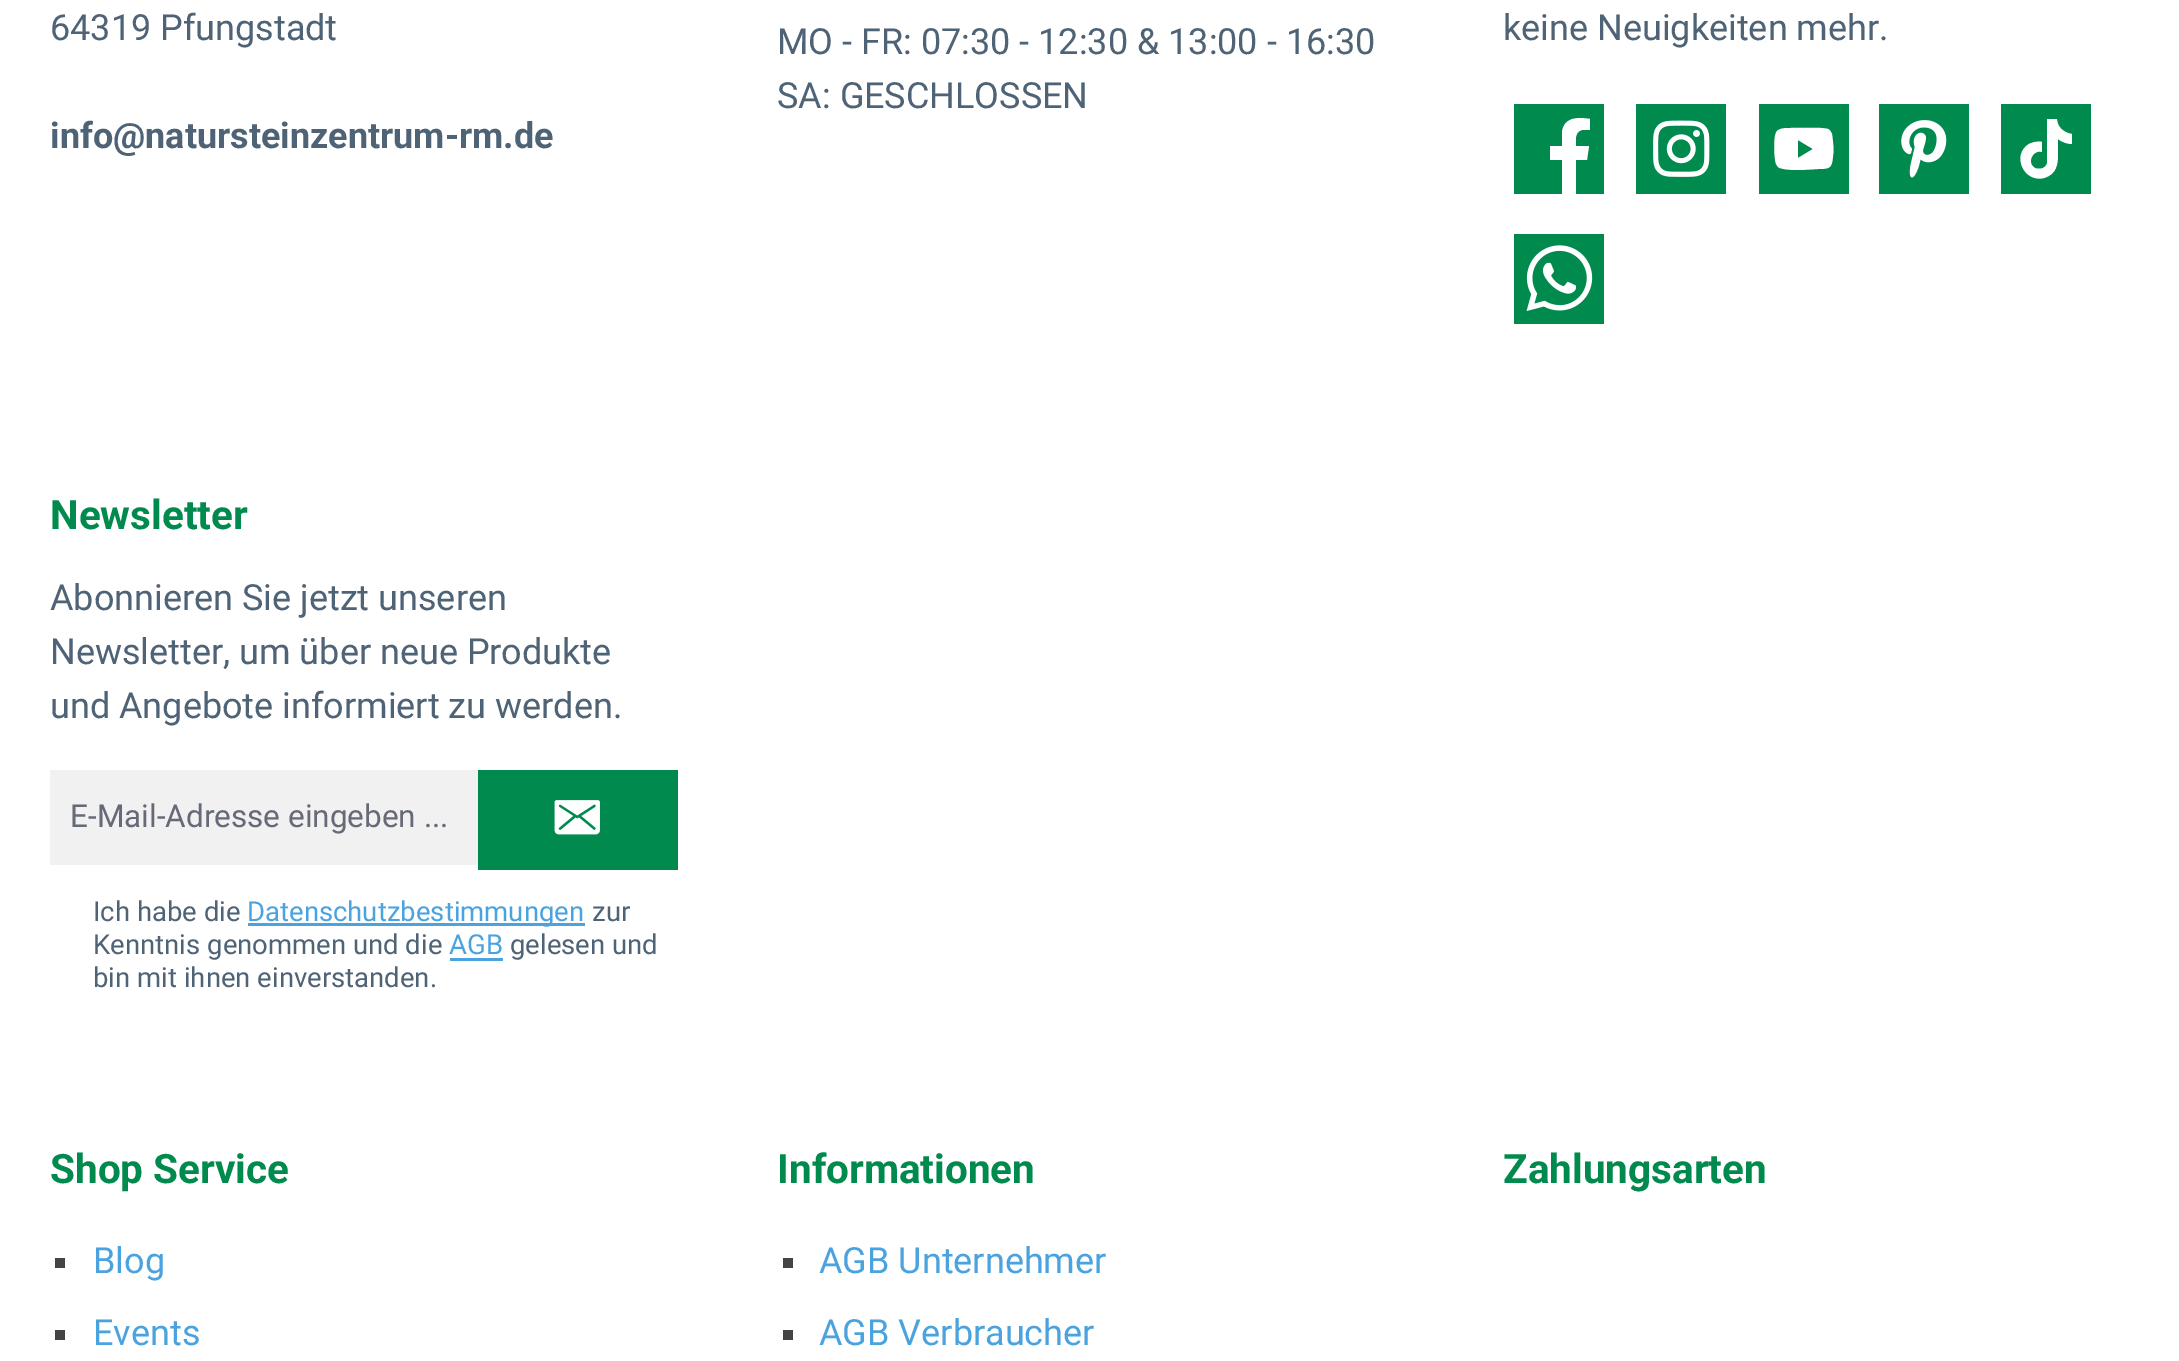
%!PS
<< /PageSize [2179 1361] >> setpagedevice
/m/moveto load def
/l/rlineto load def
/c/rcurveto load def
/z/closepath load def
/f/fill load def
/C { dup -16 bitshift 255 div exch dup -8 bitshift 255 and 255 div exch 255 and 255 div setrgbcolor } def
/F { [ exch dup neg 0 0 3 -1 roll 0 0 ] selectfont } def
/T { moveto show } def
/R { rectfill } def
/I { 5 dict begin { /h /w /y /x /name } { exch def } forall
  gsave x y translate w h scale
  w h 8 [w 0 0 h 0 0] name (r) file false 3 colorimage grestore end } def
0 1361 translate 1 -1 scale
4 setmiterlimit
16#FFFFFF C
0 0 2179 1361 R
/Roboto-Regular 36 F
16#4F6377 C
(64319 Pfungstadt) 50 40 T
/Roboto-Bold 36 F
(info@natursteinzentrum-rm.de) 50 148 T
/Roboto-Regular 36 F
(MO - FR: 07:30 - 12:30 & 13:00 - 16:30) 777 54 T
(SA: GESCHLOSSEN) 777 108 T
(keine Neuigkeiten mehr.) 1503 40 T
16#008A4E C
1514 104 90 90 R
16#FFFFFF C
1587 160 m 2 -14 l -13 0 l 0 -5 -2 -14 6 -16 c 8 0 l 0 -11 l -12 -2 -26 -2 -28 13 c 0 14 l -12 0 l 0 14 l 12 0 l 0 34 l 14 0 l 0 -34 l z f
(1.rgb) 1636 104 90 90 I
16#008A4E C
1759 104 90 90 R
16#FFFFFF C
1832 134 m -1 -2 -2 -4 -4 -5 c -6 -2 -30 -1 -38 -1 c -4 0 -10 0 -13 3 c -4 4 -3 27 -1 33 c 2 3 l 4 3 17 3 23 3 c 17 -1 l 12 0 14 -1 15 -13 c 1 -7 0 -14 -1 -22 c z 1798 158 m 0 -18 l 15 9 l z f
(2.rgb) 1879 104 90 90 I
16#008A4E C
2001 104 90 90 R
16#FFFFFF C
2048 119 m 9 0 l 0 8 7 14 15 15 c 0 10 l -5 0 -10 -2 -14 -5 c 0 14 l 0 11 -1 21 -14 25 c -20 5 -33 -23 -15 -34 c 4 -2 9 -3 13 -2 c 0 10 l -9 -3 -16 11 -7 16 c 2 1 5 1 8 0 c 2 -1 4 -3 4 -5 c 0 -44 l z f
(3.rgb) 1514 234 90 90 I
/Roboto-Bold 40.5 F
16#008A4E C
(Newsletter) 50 529 T
/Roboto-Regular 36 F
16#4F6377 C
(Abonnieren Sie jetzt unseren) 50 610 T
(Newsletter, um über neue Produkte) 50 664 T
(und Angebote informiert zu werden.) 50 718 T
16#F1F1F1 C
50 770 428 95 R
/Roboto-Regular 31.5 F
16#666977 C
(E-Mail-Adresse eingeben ...) 70 827 T
16#008A4E C
478 770 200 100 R
(4.rgb) 554 800 46 35 I
/Roboto-Regular 27.5 F
16#4F6377 C
(Ich habe die) 93 921 T
16#4AA3DF C
248 923 337 3 R
(Datenschutzbestimmungen) 247 921 T
16#4F6377 C
(zur) 592 921 T
(Kenntnis genommen und die) 93 954 T
16#4AA3DF C
(AGB) 449 954 T
450 958 53 3 R
16#4F6377 C
(gelesen und) 510 954 T
(bin mit ihnen einverstanden.) 93 987 T
/Roboto-Bold 40.5 F
16#008A4E C
(Shop Service) 50 1183 T
16#444444 C
55 1258 10 10 R
/Roboto-Regular 36 F
16#4AA3DF C
(Blog) 93 1273 T
16#444444 C
55 1330 10 10 R
16#4AA3DF C
(Events) 93 1345 T
/Roboto-Bold 40.5 F
16#008A4E C
(Informationen) 777 1183 T
16#444444 C
783 1258 10 10 R
/Roboto-Regular 36 F
16#4AA3DF C
(AGB Unternehmer) 819 1273 T
16#444444 C
783 1330 10 10 R
16#4AA3DF C
(AGB Verbraucher) 819 1345 T
/Roboto-Bold 40.5 F
16#008A4E C
(Zahlungsarten) 1503 1183 T
showpage
